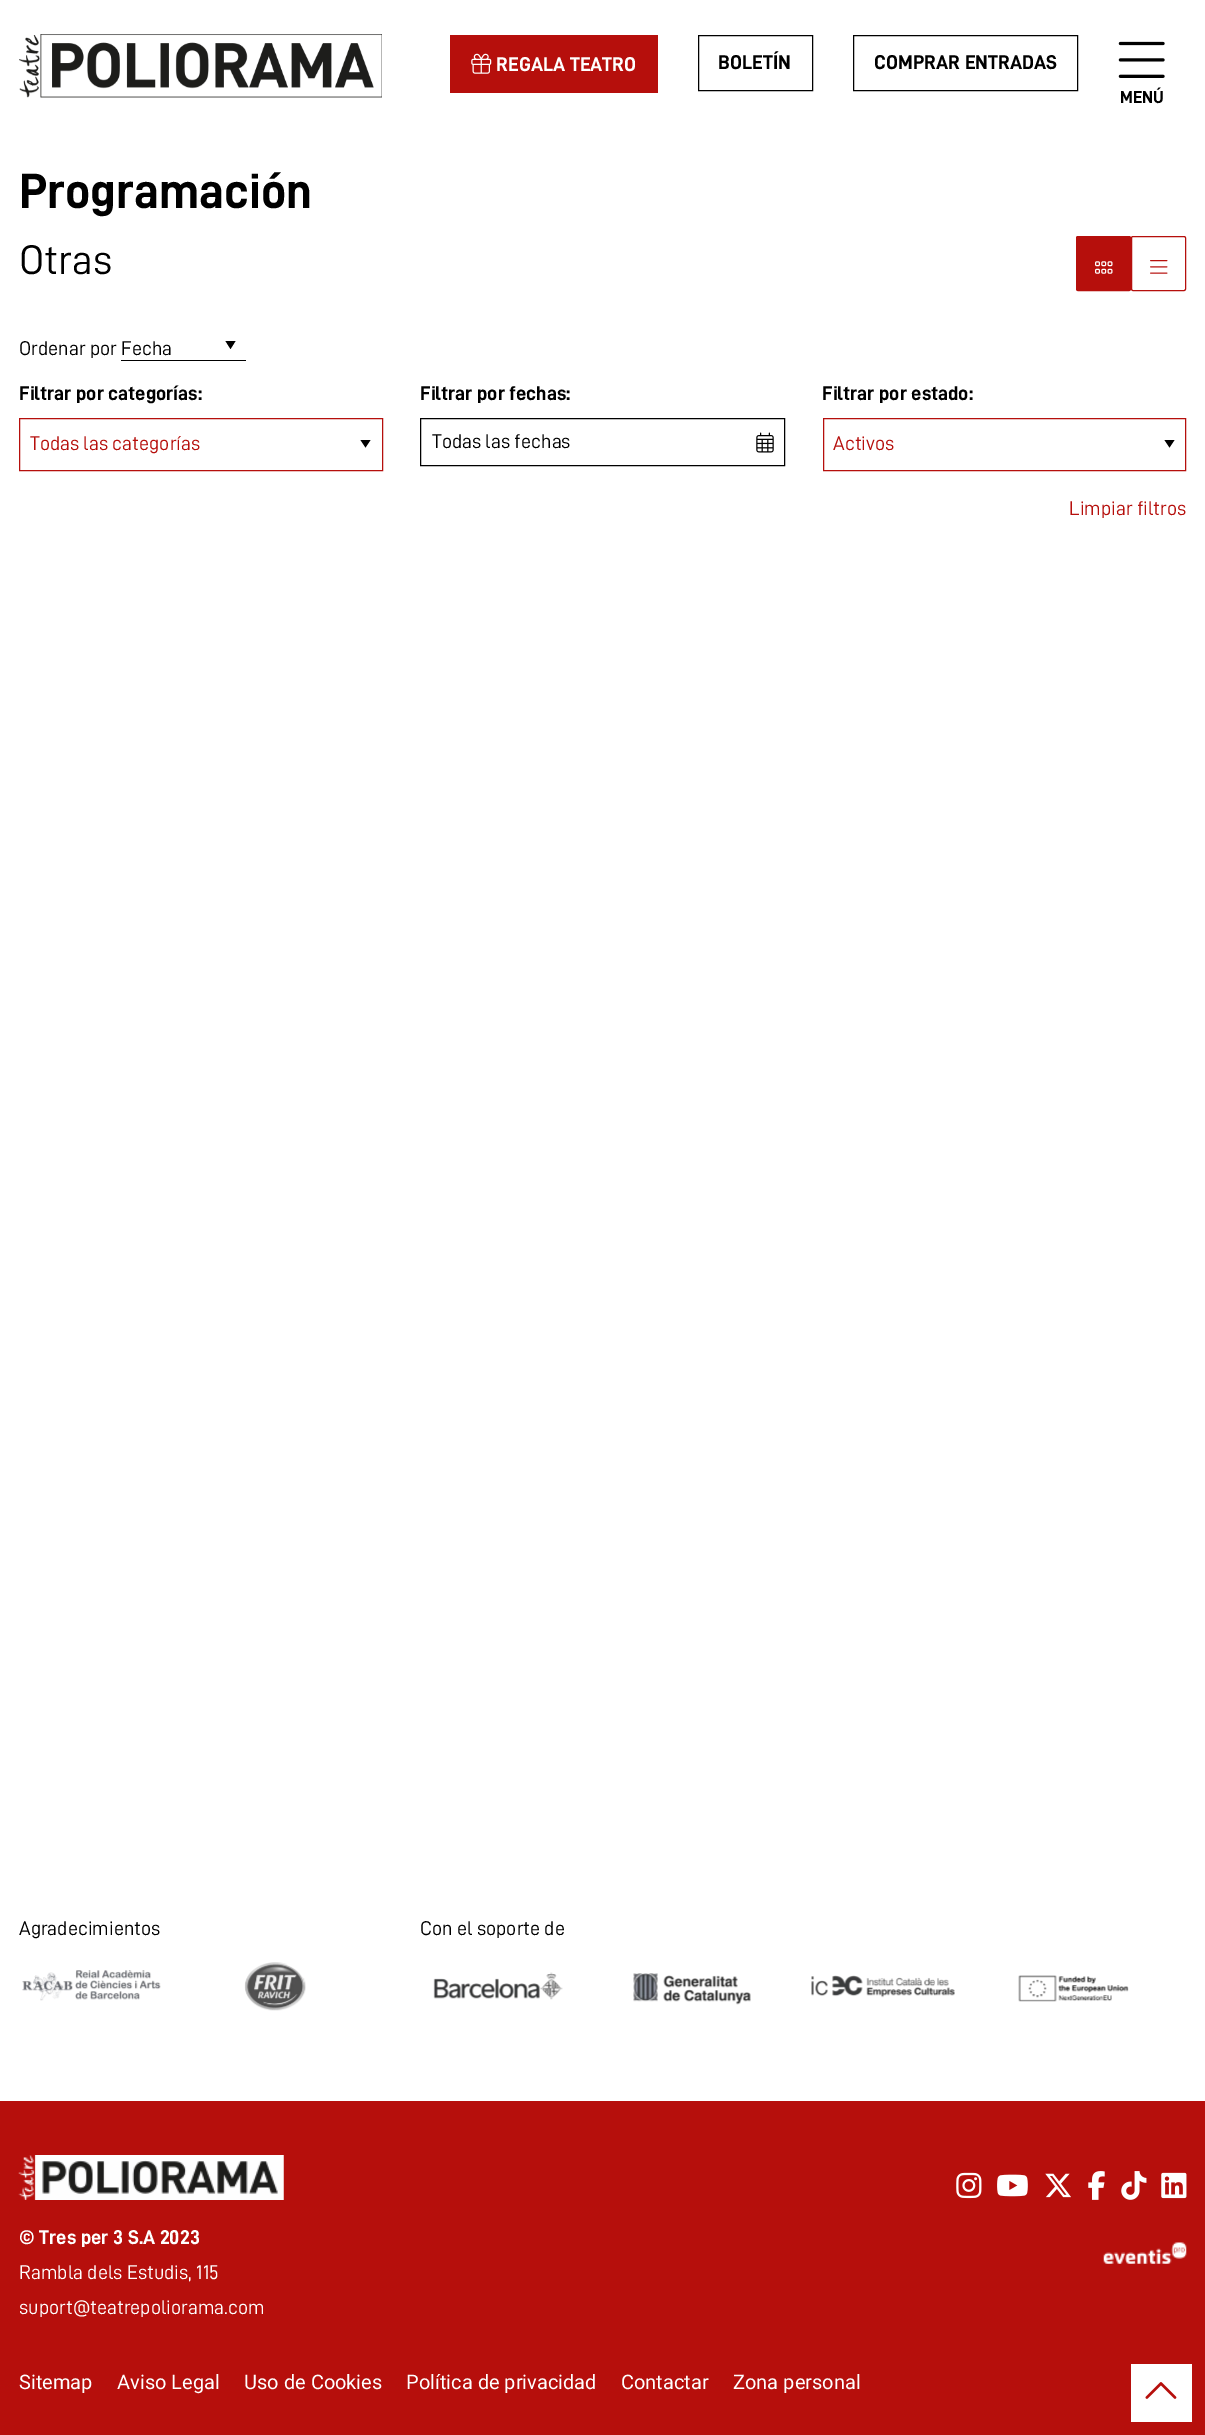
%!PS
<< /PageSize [1205 2435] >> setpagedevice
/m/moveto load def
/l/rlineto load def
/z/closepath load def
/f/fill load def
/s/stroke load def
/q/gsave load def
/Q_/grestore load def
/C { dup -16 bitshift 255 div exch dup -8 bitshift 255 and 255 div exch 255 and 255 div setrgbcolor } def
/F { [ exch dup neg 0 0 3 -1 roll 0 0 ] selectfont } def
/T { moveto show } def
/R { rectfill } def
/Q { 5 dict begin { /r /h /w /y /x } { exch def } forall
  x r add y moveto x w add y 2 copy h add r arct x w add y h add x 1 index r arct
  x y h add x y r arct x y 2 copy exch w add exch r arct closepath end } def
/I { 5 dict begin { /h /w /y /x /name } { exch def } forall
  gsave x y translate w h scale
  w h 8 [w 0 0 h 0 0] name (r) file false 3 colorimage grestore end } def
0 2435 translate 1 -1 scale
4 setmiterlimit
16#FFFFFF C
0 0 1205 2435 R
(1.rgb) 19 34 363 64 I
16#B60F0C C
450 35 208 58 R
(2.rgb) 471 53 21 21 I
/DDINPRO-Bold 20 F
16#FFFFFF C
(REGALA TEATRO) 496 71 T
16#000000 C
698.5 35.5 114 55 rectstroke
(BOLETÍN) 718 69 T
853.5 35.5 224 55 rectstroke
(COMPRAR ENTRADAS) 874 69 T
(3.rgb) 1118 41 47 37 I
/DDINPRO-Bold 17.5 F
(MENÚ) 1120 103 T
/DDINPRO-Bold 49.75 F
(Programación) 19 208 T
/DDINPRO-Regular 41.5 F
(Otras) 19 274 T
16#B60F0C C
1076.5 236.5 54 54 1.5 Q q f Q_
s
(4.rgb) 1095 261 18 13 I
1131.5 236.5 54 54 1.5 Q s
(5.rgb) 1150 260 18 14 I
/DDINPRO-Regular 20 F
16#000000 C
(Ordenar por Fecha) 19 355 T
225.5 341 m 10 0 l -5 8 l z f
121 360 125 1 R
/DDINPRO-Bold 20 F
(Filtrar por categorías:) 19 400 T
360.5 440 m 10 0 l -5 7.5 l z f
16#B60F0C C
19.5 418.5 363 52 rectstroke
/DDINPRO-Regular 20 F
(Todas las categorías) 30 450 T
/DDINPRO-Bold 20 F
16#000000 C
(Filtrar por fechas:) 420 400 T
(6.rgb) 756 432 18 21 I
420.5 418.5 364 47 rectstroke
/DDINPRO-Regular 20 F
(Todas las fechas) 432 448 T
/DDINPRO-Bold 20 F
(Filtrar por estado:) 822 400 T
1164.5 440 m 10 0 l -5 7.5 l z f
16#B60F0C C
823.5 418.5 362 52 rectstroke
/DDINPRO-Regular 20 F
(Activos) 833 450 T
(Limpiar filtros) 1069 515 T
0 2101 1205 334 R
16#000000 C
(Agradecimientos) 19 1935 T
(7.rgb) 22 1970 139 31 I
(8.rgb) 244 1962 62 49 I
(Con el soporte de) 420 1935 T
(9.rgb) 433 1972 130 28 I
(10.rgb) 633 1973 118 32 I
(11.rgb) 811 1975 144 23 I
(12.rgb) 1018 1975 111 27 I
(13.rgb) 956 2172 26 27 I
(14.rgb) 997 2174 31 23 I
(15.rgb) 1045 2173 26 25 I
(16.rgb) 1088 2171 17 29 I
(17.rgb) 1121 2171 26 29 I
(18.rgb) 1161 2172 26 27 I
(19.rgb) 1103 2242 84 22 I
(20.rgb) 18 2155 266 45 I
/DDINPRO-Bold 20 F
16#FFFFFF C
(© Tres per 3 S.A 2023) 19 2244 T
/DDINPRO-Regular 20 F
(Rambla dels Estudis, 115) 19 2279 T
(suport@teatrepoliorama.com) 19 2314 T
/Roboto-Regular 20 F
(Sitemap) 19 2389 T
(Aviso Legal) 117 2389 T
(Uso de Cookies) 244 2389 T
(Política de privacidad) 406 2389 T
(Contactar) 621 2389 T
(Zona personal) 733 2389 T
1131 2364 61 58 R
(21.rgb) 1145 2382 32 17 I
showpage
